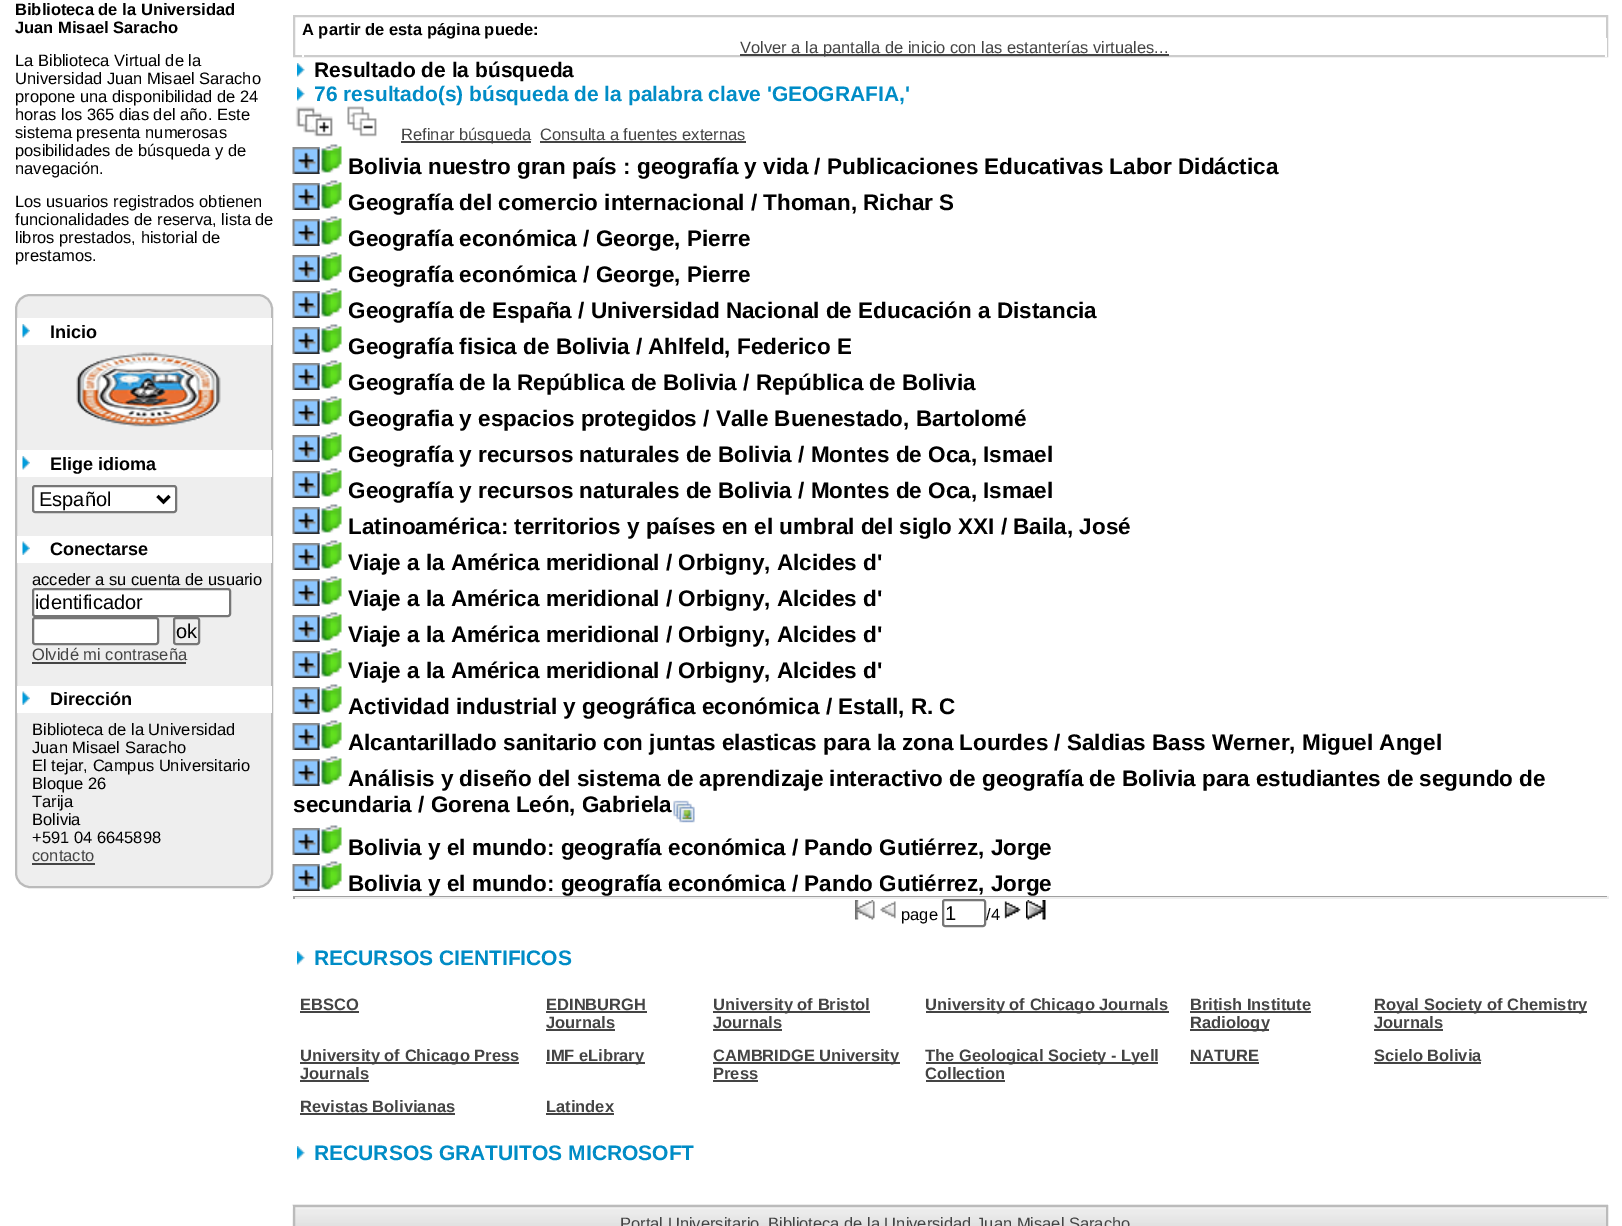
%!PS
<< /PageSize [1622 1226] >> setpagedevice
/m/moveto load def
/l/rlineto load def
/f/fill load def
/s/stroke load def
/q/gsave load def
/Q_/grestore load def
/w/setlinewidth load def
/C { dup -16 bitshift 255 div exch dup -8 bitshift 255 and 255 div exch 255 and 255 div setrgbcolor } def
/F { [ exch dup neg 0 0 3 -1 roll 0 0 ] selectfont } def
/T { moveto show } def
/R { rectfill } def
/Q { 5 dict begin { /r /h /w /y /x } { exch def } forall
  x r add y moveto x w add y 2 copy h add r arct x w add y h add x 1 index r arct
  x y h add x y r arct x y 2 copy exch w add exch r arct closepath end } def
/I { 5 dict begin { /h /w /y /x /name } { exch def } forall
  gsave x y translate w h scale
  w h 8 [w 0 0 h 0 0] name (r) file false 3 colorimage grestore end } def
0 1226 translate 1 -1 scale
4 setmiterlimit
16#FFFFFF C
0 0 1622 1226 R
/LiberationSans-Bold 16.5 F
16#000000 C
(Biblioteca de la Universidad) 15 15 T
(Juan Misael Saracho) 15 33 T
/LiberationSans-Regular 16.5 F
(La Biblioteca Virtual de la) 15 66 T
(Universidad Juan Misael Saracho) 15 84 T
(propone una disponibilidad de 24) 15 102 T
(horas los 365 dias del año. Este) 15 120 T
(sistema presenta numerosas) 15 138 T
(posibilidades de búsqueda y de) 15 156 T
(navegación.) 15 174 T
(Los usuarios registrados obtienen) 15 207 T
(funcionalidades de reserva, lista de) 15 225 T
(libros prestados, historial de) 15 243 T
(prestamos.) 15 261 T
16#CCCCCC C
2 w
294 16 1313 40 rectstroke
/LiberationSans-Bold 16.5 F
16#000000 C
(A partir de esta página puede:) 302 35 T
16#FFFFFF C
1605 38 2 19 R
302 55 2 2 R
16#444444 C
740 54 429 2 R
/LiberationSans-Regular 16.5 F
(Volver a la pantalla de inicio con las estanterías virtuales...) 740 53 T
(1.rgb) 297 63 8 14 I
/LiberationSans-Bold 21 F
16#000000 C
(Resultado de la búsqueda) 314 77 T
(1.rgb) 297 87 8 14 I
16#008CC6 C
(76 resultado\(s\) búsqueda de la palabra clave 'GEOGRAFIA,') 314 101 T
(2.rgb) 295 106 38 31 I
(3.rgb) 347 106 30 31 I
16#444444 C
401 141 130 2 R
/LiberationSans-Regular 16.5 F
(Refinar búsqueda) 401 140 T
(Consulta a fuentes externas) 540 140 T
540 141 206 2 R
16#8CC6FF C
294 147 26 27 R
(4.rgb) 292 147 28 27 I
(5.rgb) 319 144 23 29 I
/LiberationSans-Bold 22.5 F
16#000000 C
(Bolivia nuestro gran país : geografía y vida / Publicaciones Educativas Labor Didáctica) 348 174 T
16#8CC6FF C
294 183 26 27 R
(6.rgb) 292 183 28 27 I
(5.rgb) 319 180 23 29 I
16#000000 C
(Geografía del comercio internacional / Thoman, Richar S) 348 210 T
16#8CC6FF C
294 219 26 27 R
(6.rgb) 292 219 28 27 I
(5.rgb) 319 216 23 29 I
16#000000 C
(Geografía económica / George, Pierre) 348 246 T
16#8CC6FF C
294 255 26 27 R
(4.rgb) 292 255 28 27 I
(5.rgb) 319 252 23 29 I
16#000000 C
(Geografía económica / George, Pierre) 348 282 T
16#8CC6FF C
294 291 26 27 R
(6.rgb) 292 291 28 27 I
(5.rgb) 319 288 23 29 I
16#000000 C
(Geografía de España / Universidad Nacional de Educación a Distancia) 348 318 T
16#8CC6FF C
294 327 26 27 R
(6.rgb) 292 327 28 27 I
(5.rgb) 319 324 23 29 I
16#000000 C
(Geografía fisica de Bolivia / Ahlfeld, Federico E) 348 354 T
16#8CC6FF C
294 363 26 27 R
(6.rgb) 292 363 28 27 I
(5.rgb) 319 360 23 29 I
16#000000 C
(Geografía de la República de Bolivia / República de Bolivia) 348 390 T
16#8CC6FF C
294 399 26 27 R
(6.rgb) 292 399 28 27 I
(5.rgb) 319 396 23 29 I
16#000000 C
(Geografia y espacios protegidos / Valle Buenestado, Bartolomé) 348 426 T
16#8CC6FF C
294 435 26 27 R
(6.rgb) 292 435 28 27 I
(5.rgb) 319 432 23 29 I
16#000000 C
(Geografía y recursos naturales de Bolivia / Montes de Oca, Ismael) 348 462 T
16#8CC6FF C
294 471 26 27 R
(6.rgb) 292 471 28 27 I
(5.rgb) 319 468 23 29 I
16#000000 C
(Geografía y recursos naturales de Bolivia / Montes de Oca, Ismael) 348 498 T
16#8CC6FF C
294 507 26 27 R
(6.rgb) 292 507 28 27 I
(5.rgb) 319 504 23 29 I
16#000000 C
(Latinoamérica: territorios y países en el umbral del siglo XXI / Baila, José) 348 534 T
16#8CC6FF C
294 543 26 27 R
(6.rgb) 292 543 28 27 I
(5.rgb) 319 540 23 29 I
16#000000 C
(Viaje a la América meridional / Orbigny, Alcides d') 348 570 T
16#8CC6FF C
294 579 26 27 R
(6.rgb) 292 579 28 27 I
(5.rgb) 319 576 23 29 I
16#000000 C
(Viaje a la América meridional / Orbigny, Alcides d') 348 606 T
16#8CC6FF C
294 615 26 27 R
(6.rgb) 292 615 28 27 I
(5.rgb) 319 612 23 29 I
16#000000 C
(Viaje a la América meridional / Orbigny, Alcides d') 348 642 T
16#8CC6FF C
294 651 26 27 R
(6.rgb) 292 651 28 27 I
(5.rgb) 319 648 23 29 I
16#000000 C
(Viaje a la América meridional / Orbigny, Alcides d') 348 678 T
16#8CC6FF C
294 687 26 27 R
(6.rgb) 292 687 28 27 I
(5.rgb) 319 684 23 29 I
16#000000 C
(Actividad industrial y geográfica económica / Estall, R. C) 348 714 T
16#8CC6FF C
294 723 26 27 R
(6.rgb) 292 723 28 27 I
(5.rgb) 319 720 23 29 I
16#000000 C
(Alcantarillado sanitario con juntas elasticas para la zona Lourdes / Saldias Bass Werner, Miguel Angel) 348 750 T
16#8CC6FF C
294 759 26 27 R
(6.rgb) 292 759 28 27 I
(5.rgb) 319 756 23 29 I
16#000000 C
(Análisis y diseño del sistema de aprendizaje interactivo de geografía de Bolivia para estudiantes de segundo de) 348 786 T
(secundaria / Gorena León, Gabriela) 293 812 T
(7.rgb) 673 800 22 23 I
16#8CC6FF C
294 828 26 27 R
(4.rgb) 292 828 28 27 I
(5.rgb) 319 825 23 29 I
16#000000 C
(Bolivia y el mundo: geografía económica / Pando Gutiérrez, Jorge) 348 855 T
16#8CC6FF C
294 864 26 27 R
(6.rgb) 292 864 28 27 I
(5.rgb) 319 861 23 29 I
16#000000 C
(Bolivia y el mundo: geografía económica / Pando Gutiérrez, Jorge) 348 891 T
16#9F9F9F C
293 896 1315 1 R
16#EEEEEE C
1607 896 2 3 R
293 897 1315 2 R
16#9F9F9F C
293 896 2 3 R
(8.rgb) 855 900 20 20 I
(9.rgb) 880 901 16 18 I
/LiberationSans-Regular 16.5 F
16#000000 C
(page) 901 920 T
16#767676 C
943 900 42 26 2 Q s
/LiberationSans-Regular 20 F
16#000000 C
(1) 945 920 T
/LiberationSans-Regular 16.5 F
(/4) 986 920 T
(10.rgb) 1004 901 17 18 I
(11.rgb) 1026 900 20 20 I
(1.rgb) 297 951 8 14 I
/LiberationSans-Bold 21 F
16#008CC6 C
(RECURSOS CIENTIFICOS) 314 965 T
/LiberationSans-Bold 16.5 F
16#444444 C
(EBSCO) 300 1010 T
300 1011 59 2 R
(EDINBURGH) 546 1010 T
546 1011 101 2 R
(Journals) 546 1028 T
546 1029 69 2 R
713 1011 157 2 R
(University of Bristol) 713 1010 T
(Journals) 713 1028 T
713 1029 69 2 R
926 1011 243 2 R
(University of Chicago Journals) 925 1010 T
(British Institute) 1190 1010 T
1190 1011 121 2 R
1190 1029 79 2 R
(Radiology) 1190 1028 T
1374 1011 213 2 R
(Royal Society of Chemistry) 1374 1010 T
(Journals) 1374 1028 T
1374 1029 69 2 R
300 1062 219 2 R
(University of Chicago Press) 300 1061 T
(Journals) 300 1079 T
300 1080 69 2 R
546 1062 99 2 R
(IMF eLibrary) 546 1061 T
713 1062 187 2 R
(CAMBRIDGE University) 713 1061 T
(Press) 713 1079 T
713 1080 45 2 R
926 1062 232 2 R
(The Geological Society - Lyell) 925 1061 T
(Collection) 925 1079 T
926 1080 79 2 R
(NATURE) 1190 1061 T
1190 1062 69 2 R
(Scielo Bolivia) 1374 1061 T
1374 1062 107 2 R
(Revistas Bolivianas) 300 1112 T
300 1113 155 2 R
(Latindex) 546 1112 T
546 1113 68 2 R
(1.rgb) 297 1146 8 14 I
/LiberationSans-Bold 21 F
16#008CC6 C
(RECURSOS GRATUITOS MICROSOFT) 314 1160 T
(12.rgb) 292 1204 1316 22 I
16#BBBBBB C
294 1206 1313 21 rectstroke
/LiberationSans-Regular 16.5 F
16#444444 C
(Portal Universitario) 620 1229 T
(Biblioteca de la Universidad Juan Misael Saracho) 768 1229 T
16#EEEEEE C
16 295 256 592 14 Q q f Q_
16#BBBBBB C
s
16#FFFFFF C
17 318 255 27 R
(13.rgb) 22 324 8 14 I
/LiberationSans-Bold 18 F
16#000000 C
(Inicio) 50 338 T
(14.rgb) 76 352 145 75 I
16#FFFFFF C
17 450 255 27 R
(13.rgb) 22 456 8 14 I
16#000000 C
(Elige idioma) 50 470 T
16#FFFFFF C
33 486 143 26 2 Q q f Q_
16#767676 C
s
16#000000 C
3 w
157.5 496 m 6 6 l 6 -6 l s
/LiberationSans-Regular 20 F
(Español) 39 506 T
16#FFFFFF C
17 536 255 27 R
(15.rgb) 22 541 8 14 I
/LiberationSans-Bold 18 F
16#000000 C
(Conectarse) 50 555 T
/LiberationSans-Regular 16.5 F
(acceder a su cuenta de usuario) 32 585 T
16#FFFFFF C
33 589 197 27 2 Q q f Q_
16#767676 C
2 w
s
/LiberationSans-Regular 20 F
16#000000 C
(identificador) 35 609 T
16#FFFFFF C
33 618 125 26 2 Q q f Q_
16#767676 C
s
174 618 25 26 2 Q s
16#000000 C
(ok) 176 638 T
/LiberationSans-Regular 16.5 F
16#444444 C
(Olvidé mi contraseña) 32 660 T
32 662 154 2 R
16#FFFFFF C
17 686 255 27 R
(15.rgb) 22 691 8 14 I
/LiberationSans-Bold 18 F
16#000000 C
(Dirección) 50 705 T
/LiberationSans-Regular 16.5 F
(Biblioteca de la Universidad) 32 735 T
(Juan Misael Saracho) 32 753 T
(El tejar, Campus Universitario) 32 771 T
(Bloque 26) 32 789 T
(Tarija) 32 807 T
(Bolivia) 32 825 T
(+591 04 6645898) 32 843 T
16#444444 C
(contacto) 32 861 T
32 863 63 2 R
showpage
